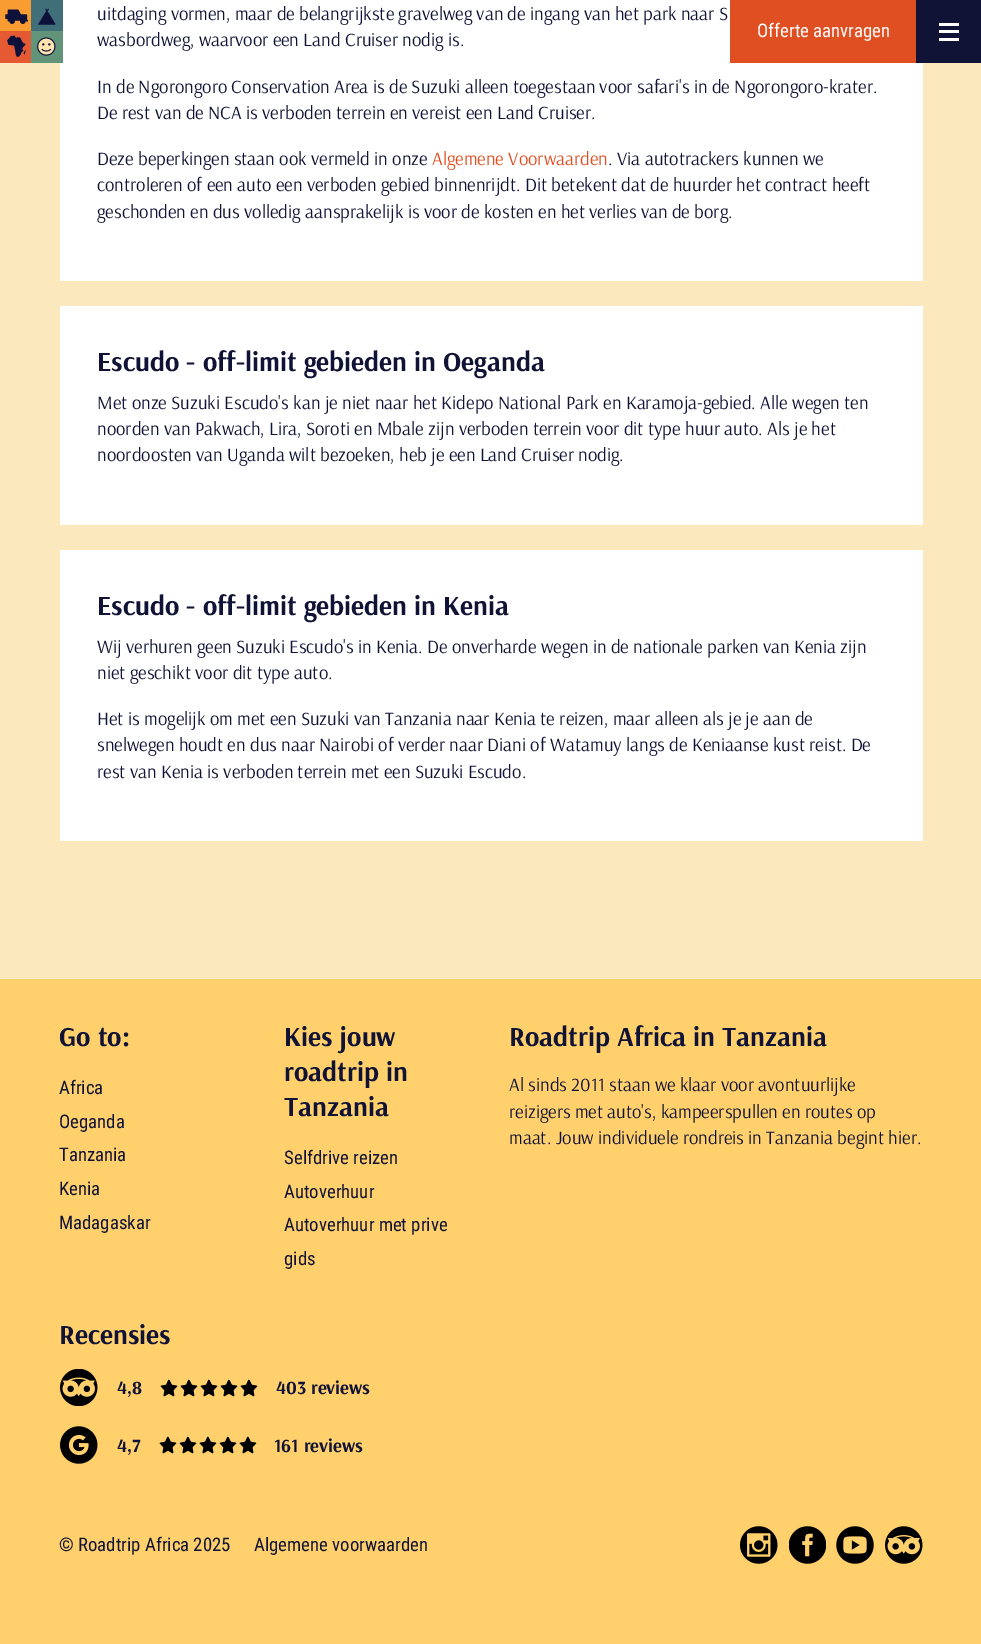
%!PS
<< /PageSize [981 1644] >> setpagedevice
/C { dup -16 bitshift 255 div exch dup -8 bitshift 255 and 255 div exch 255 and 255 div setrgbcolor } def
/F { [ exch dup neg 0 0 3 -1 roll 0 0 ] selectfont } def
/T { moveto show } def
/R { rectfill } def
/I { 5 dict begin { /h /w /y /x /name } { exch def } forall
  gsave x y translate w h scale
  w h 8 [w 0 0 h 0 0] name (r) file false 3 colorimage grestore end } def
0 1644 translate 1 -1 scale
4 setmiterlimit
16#FBE8BC C
0 0 981 1644 R
16#FFFFFF C
60 0 863 281 R
/Arsenal-Regular 18.75 F
16#101236 C
(uitdaging vormen, maar de belangrijkste gravelweg van de ingang van het park naar S) 97 20 T
(wasbordweg, waarvoor een Land Cruiser nodig is.) 97 46 T
(In de Ngorongoro Conservation Area is de Suzuki alleen toegestaan voor safari's in de Ngorongoro-krater.) 97 93 T
(De rest van de NCA is verboden terrein en vereist een Land Cruiser.) 97 119 T
(Deze beperkingen staan ook vermeld in onze) 97 165 T
16#DF4F22 C
(Algemene Voorwaarden) 432 165 T
16#101236 C
(. Via autotrackers kunnen we) 608 165 T
(controleren of een auto een verboden gebied binnenrijdt. Dit betekent dat de huurder het contract heeft) 97 191 T
(geschonden en dus volledig aansprakelijk is voor de kosten en het verlies van de borg.) 97 218 T
16#FFFFFF C
60 306 863 219 R
/Arsenal-Bold 27.5 F
16#101236 C
(Escudo - off-limit gebieden in Oeganda) 97 371 T
/Arsenal-Regular 18.75 F
(Met onze Suzuki Escudo's kan je niet naar het Kidepo National Park en Karamoja-gebied. Alle wegen ten) 97 409 T
(noorden van Pakwach, Lira, Soroti en Mbale zijn verboden terrein voor dit type huur auto. Als je het) 97 435 T
(noordoosten van Uganda wilt bezoeken, heb je een Land Cruiser nodig.) 97 461 T
16#FFFFFF C
60 550 863 291 R
/Arsenal-Bold 27.5 F
16#101236 C
(Escudo - off-limit gebieden in Kenia) 97 615 T
/Arsenal-Regular 18.75 F
(Wij verhuren geen Suzuki Escudo's in Kenia. De onverharde wegen in de nationale parken van Kenia zijn) 97 653 T
(niet geschikt voor dit type auto.) 97 679 T
(Het is mogelijk om met een Suzuki van Tanzania naar Kenia te reizen, maar alleen als je je aan de) 97 725 T
(snelwegen houdt en dus naar Nairobi of verder naar Diani of Watamuy langs de Keniaanse kust reist. De) 97 751 T
(rest van Kenia is verboden terrein met een Suzuki Escudo.) 97 778 T
(1.rgb) 0 0 63 63 I
16#DF4F22 C
730 0 186 63 R
/RobotoCondensed-Regular 18.75 F
16#FFFFFF C
(Offerte aanvragen) 757 37 T
16#101236 C
916 0 65 63 R
16#FFFFFF C
939 23 20 3 R
939 30 20 3 R
939 38 20 3 R
16#FFD06B C
0 979 981 665 R
/Arsenal-Bold 27.5 F
16#101236 C
(Go to:) 59 1046 T
/RobotoCondensed-Regular 18.75 F
(Africa) 59 1094 T
(Oeganda) 59 1128 T
(Tanzania) 59 1161 T
(Kenia) 59 1195 T
(Madagaskar) 59 1229 T
/Arsenal-Bold 27.5 F
(Kies jouw) 284 1046 T
(roadtrip in) 284 1081 T
(Tanzania) 284 1116 T
/RobotoCondensed-Regular 18.75 F
(Selfdrive reizen) 284 1164 T
(Autoverhuur) 284 1198 T
(Autoverhuur met prive) 284 1231 T
(gids) 284 1265 T
/Arsenal-Bold 27.5 F
(Roadtrip Africa in Tanzania) 509 1046 T
/Arsenal-Regular 18.75 F
(Al sinds 2011 staan we klaar voor avontuurlijke) 509 1091 T
(reizigers met auto's, kampeerspullen en routes op) 509 1118 T
(maat. Jouw individuele rondreis in Tanzania begint hier.) 509 1144 T
/Arsenal-Bold 27.5 F
(Recensies) 59 1344 T
(2.rgb) 60 1369 38 37 I
/Arsenal-Bold 18.75 F
(4,8) 117 1394 T
(3.rgb) 160 1379 98 18 I
(403 reviews) 276 1394 T
(4.rgb) 60 1426 38 38 I
(4,7) 117 1452 T
(3.rgb) 159 1436 98 18 I
(161 reviews) 274 1452 T
/RobotoCondensed-Regular 18.75 F
(© Roadtrip Africa 2025) 59 1551 T
(Algemene voorwaarden) 254 1551 T
(5.rgb) 740 1526 38 38 I
(6.rgb) 789 1526 37 38 I
(7.rgb) 836 1526 38 38 I
(8.rgb) 885 1526 38 38 I
showpage
